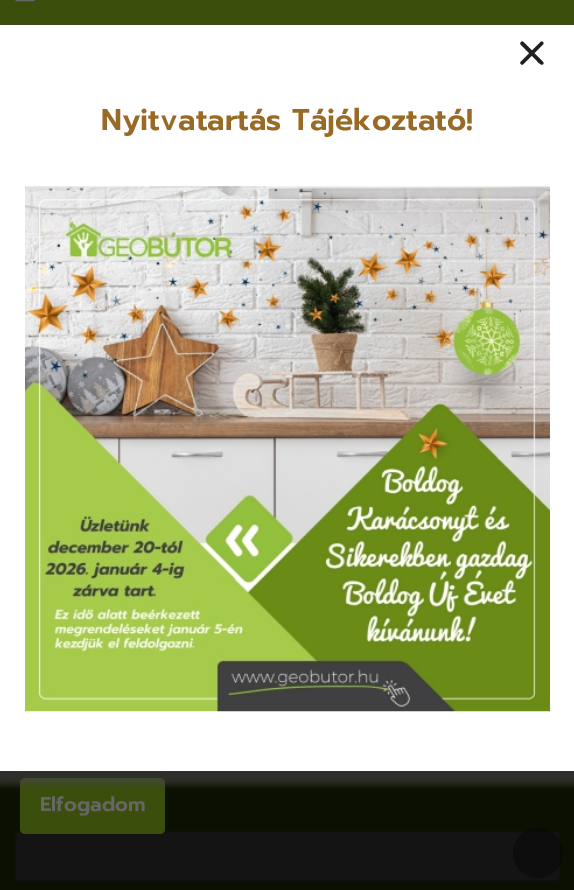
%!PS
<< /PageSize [574 890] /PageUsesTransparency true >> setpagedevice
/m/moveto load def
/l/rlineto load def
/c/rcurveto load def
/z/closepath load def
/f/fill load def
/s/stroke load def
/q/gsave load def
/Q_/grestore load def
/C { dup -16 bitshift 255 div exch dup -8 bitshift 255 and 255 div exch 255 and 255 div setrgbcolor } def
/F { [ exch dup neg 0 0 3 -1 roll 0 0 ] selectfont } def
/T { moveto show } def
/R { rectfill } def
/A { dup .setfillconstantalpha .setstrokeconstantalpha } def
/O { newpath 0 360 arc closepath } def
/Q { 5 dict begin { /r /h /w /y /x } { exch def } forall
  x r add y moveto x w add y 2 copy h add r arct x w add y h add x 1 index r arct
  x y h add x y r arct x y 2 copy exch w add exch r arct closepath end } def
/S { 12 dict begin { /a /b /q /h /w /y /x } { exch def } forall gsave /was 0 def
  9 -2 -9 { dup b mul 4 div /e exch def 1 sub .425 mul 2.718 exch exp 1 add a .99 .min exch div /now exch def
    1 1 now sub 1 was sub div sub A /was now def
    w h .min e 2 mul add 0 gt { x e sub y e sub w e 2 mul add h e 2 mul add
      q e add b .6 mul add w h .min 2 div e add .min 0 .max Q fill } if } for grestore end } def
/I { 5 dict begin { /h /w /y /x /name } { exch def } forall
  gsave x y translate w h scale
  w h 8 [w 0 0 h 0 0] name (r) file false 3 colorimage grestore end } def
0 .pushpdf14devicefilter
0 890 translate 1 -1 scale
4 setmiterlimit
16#3C4E0B C
0 0 574 890 R
(1.rgb) 15 0 20 2 I
16#666666 C
15.5 831.5 544 49 3.5 Q q f Q_
16#525252 C
s
0.5 A
16#1A1A1A C
538 853 25 O f
0.8 A
16#000000 C
0 771 574 119 R
1 A
16#3C4E0B C
20 778 145 56 5 Q f
16#444444 C
-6 26 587 759 0 3 .6 S
16#FFFFFF C
0 25 574 746 R
16#202020 C
543 42 m .5 1 .5 2 0 2.5 c -19.5 19.5 l -1 1 -2 1 -2.5 0 c -1 -.5 -1 -1.5 0 -2.5 c 19.5 -19.5 l .5 -.5 1.5 -.5 2.5 0 c z f
523.5 42 m 19.5 20 l .5 .5 .5 1 .5 1.5 c -1.5 3.5 -6 -2 -6.5 -2.5 c -16.5 -16.5 l -1 -2 1.5 -4 3 -2.5 c z f
/Prompt-SemiBold 30 F
16#996A26 C
(Nyitvatartás Tájékoztató!) 101 130 T
(2.rgb) 25 186 525 526 I
/Prompt-SemiBold 20 F
16#666666 C
(Elfogadom) 40 811 T
.poppdf14devicefilter showpage
